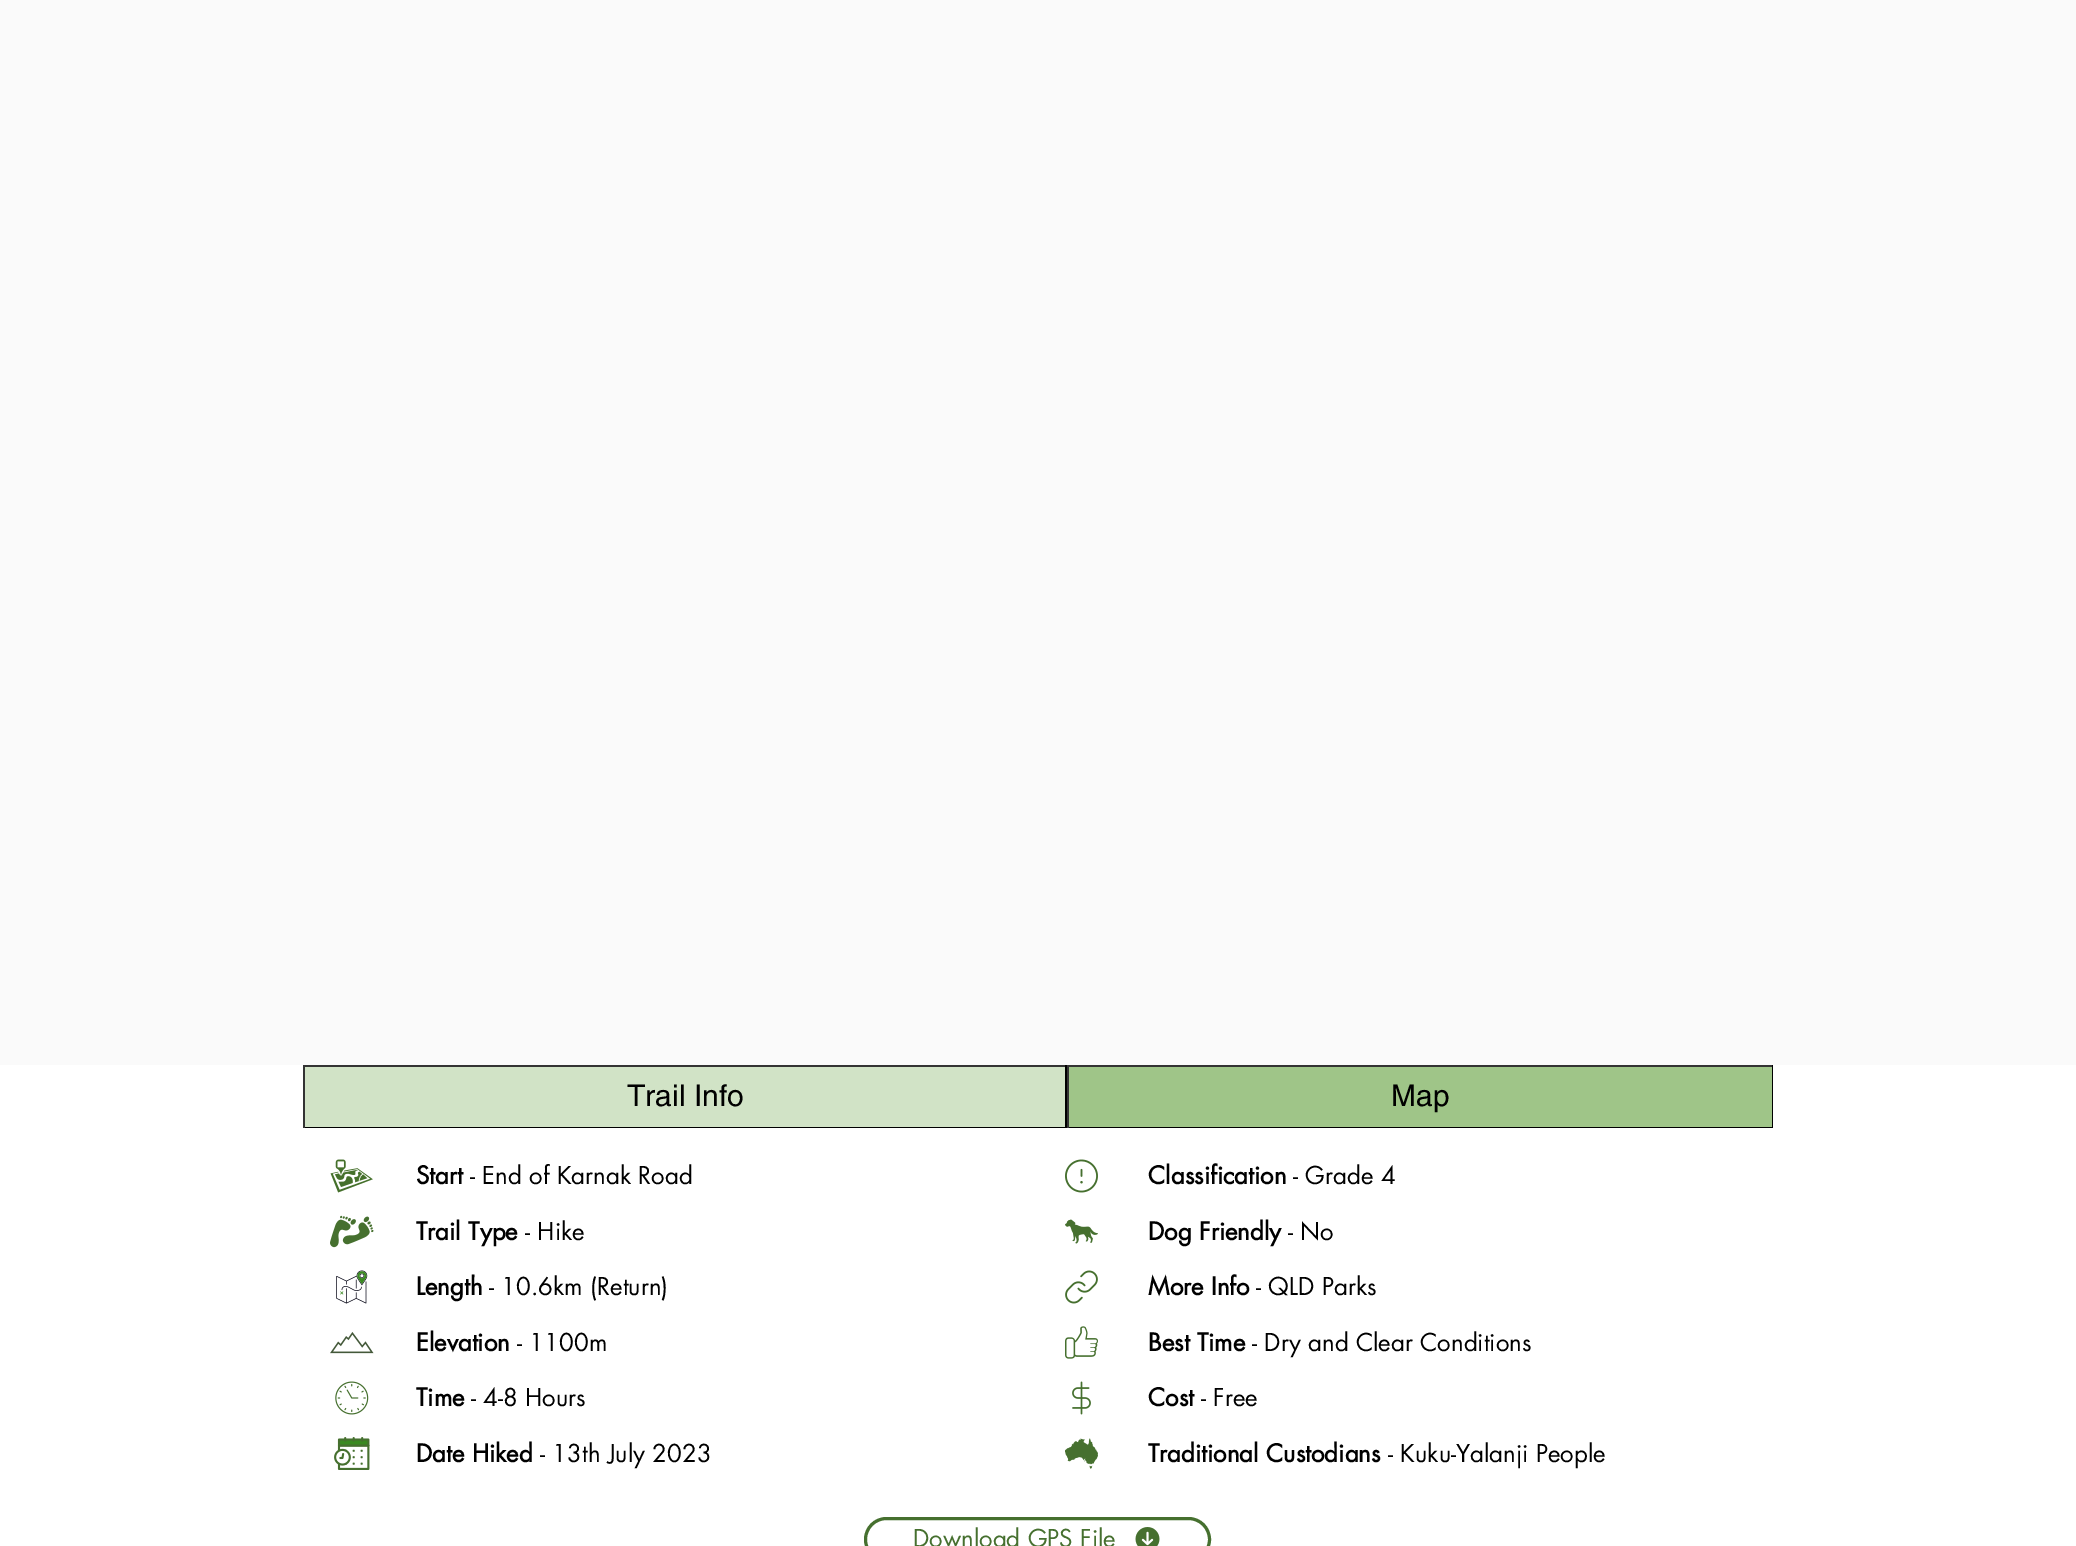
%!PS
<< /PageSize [2076 1546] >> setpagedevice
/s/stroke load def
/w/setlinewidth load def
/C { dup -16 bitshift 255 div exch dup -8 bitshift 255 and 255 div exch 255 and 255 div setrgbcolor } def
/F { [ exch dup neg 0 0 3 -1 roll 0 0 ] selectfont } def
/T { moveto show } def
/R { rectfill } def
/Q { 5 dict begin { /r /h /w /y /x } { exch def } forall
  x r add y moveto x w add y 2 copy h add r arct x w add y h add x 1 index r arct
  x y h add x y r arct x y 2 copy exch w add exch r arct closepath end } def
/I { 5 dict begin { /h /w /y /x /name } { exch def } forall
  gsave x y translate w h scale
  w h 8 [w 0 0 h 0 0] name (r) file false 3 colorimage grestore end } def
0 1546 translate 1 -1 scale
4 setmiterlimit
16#FFFFFF C
0 0 2076 1546 R
16#FAFAFA C
0 0 2076 1065 R
16#D1E3C6 C
305 1067 760 60 R
16#333333 C
303 1065 1470 2 R
16#000000 C
1065 1065 2 63 R
303 1127 764 1 R
16#333333 C
303 1065 2 63 R
/helvetica-Regular 30 F
16#000000 C
(Trail Info) 627 1106 T
16#9FC588 C
1069 1067 703 60 R
16#000000 C
1772 1065 1 63 R
1067 1127 706 1 R
16#333333 C
1067 1065 2 63 R
16#000000 C
(Map) 1391 1106 T
(1.rgb) 330 1159 43 34 I
/futura-Bold 24 F
(Start) 416 1184 T
/futura-Regular 24 F
(- End of Karnak Road) 470 1184 T
(2.rgb) 330 1215 44 33 I
/futura-Bold 24 F
(Trail Type) 416 1240 T
/futura-Regular 24 F
(- Hike) 525 1240 T
(3.rgb) 336 1270 32 34 I
/futura-Bold 24 F
(Length) 416 1295 T
/futura-Regular 24 F
(- 10.6km \(Return\)) 489 1295 T
(4.rgb) 330 1332 44 22 I
/futura-Bold 24 F
(Elevation) 416 1351 T
/futura-Regular 24 F
(- 1100m) 517 1351 T
(5.rgb) 335 1381 34 34 I
/futura-Bold 24 F
(Time) 416 1406 T
/futura-Regular 24 F
(- 4-8 Hours) 471 1406 T
(6.rgb) 334 1437 36 33 I
/futura-Bold 24 F
(Date Hiked) 416 1462 T
/futura-Regular 24 F
(- 13th July 2023) 540 1462 T
(7.rgb) 1065 1159 33 34 I
/futura-Bold 24 F
(Classification) 1148 1184 T
/futura-Regular 24 F
(- Grade 4) 1293 1184 T
(8.rgb) 1065 1219 33 25 I
/futura-Bold 24 F
(Dog Friendly) 1148 1240 T
/futura-Regular 24 F
(- No) 1288 1240 T
(9.rgb) 1065 1270 33 34 I
/futura-Bold 24 F
(More Info) 1148 1295 T
/futura-Regular 24 F
(- QLD Parks) 1256 1295 T
(10.rgb) 1065 1326 33 33 I
/futura-Bold 24 F
(Best Time) 1148 1351 T
/futura-Regular 24 F
(- Dry and Clear Conditions) 1252 1351 T
(11.rgb) 1072 1381 19 34 I
/futura-Bold 24 F
(Cost) 1148 1406 T
/futura-Regular 24 F
(- Free) 1201 1406 T
(12.rgb) 1065 1438 33 31 I
/futura-Bold 24 F
(Traditional Custodians) 1148 1462 T
/futura-Regular 24 F
(- Kuku-Yalanji People) 1388 1462 T
16#46702F C
3 w
865.5 1518.5 344 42 21 Q s
(Download GPS File) 913 1547 T
(13.rgb) 1135 1527 25 19 I
showpage
